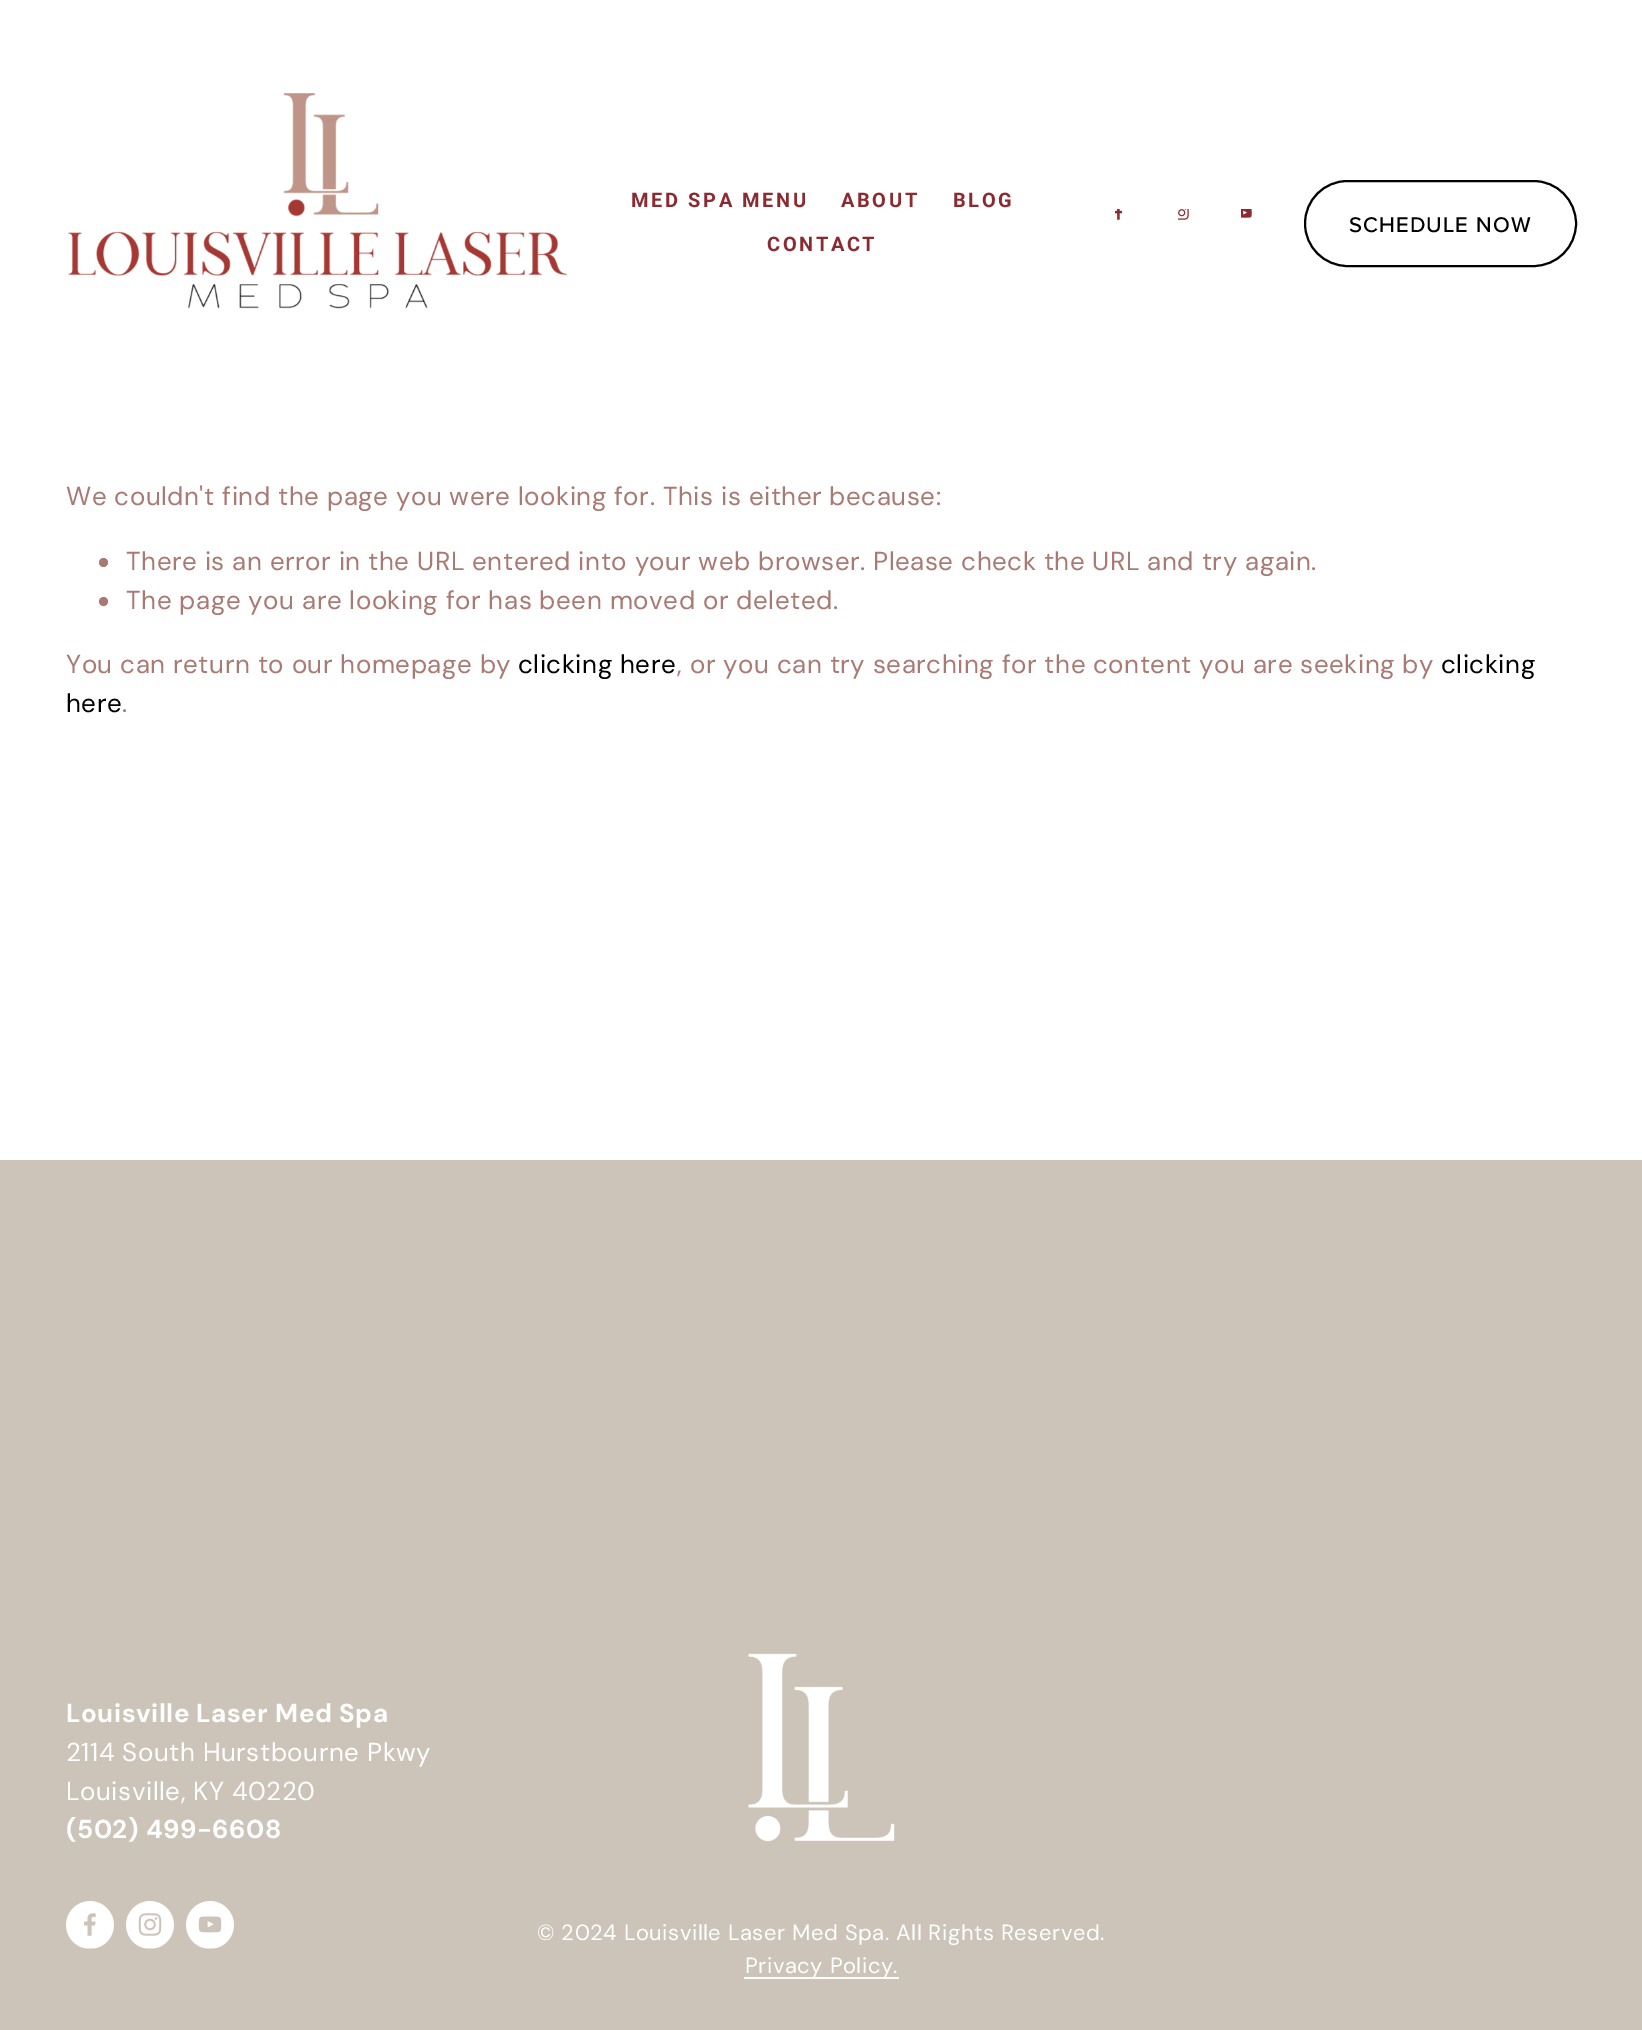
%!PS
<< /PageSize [1642 2030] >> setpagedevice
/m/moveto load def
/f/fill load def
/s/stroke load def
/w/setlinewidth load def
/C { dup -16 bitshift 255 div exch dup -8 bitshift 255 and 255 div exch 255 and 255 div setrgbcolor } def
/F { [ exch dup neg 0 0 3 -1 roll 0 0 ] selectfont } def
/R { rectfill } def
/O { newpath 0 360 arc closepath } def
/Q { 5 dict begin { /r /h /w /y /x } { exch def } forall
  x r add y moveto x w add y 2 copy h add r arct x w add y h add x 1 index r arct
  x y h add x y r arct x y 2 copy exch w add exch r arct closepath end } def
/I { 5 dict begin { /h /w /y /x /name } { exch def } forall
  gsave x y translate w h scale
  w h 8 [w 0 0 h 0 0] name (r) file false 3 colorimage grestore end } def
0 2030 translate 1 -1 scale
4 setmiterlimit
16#FFFFFF C
0 0 1642 2030 R
(1.rgb) 68 93 499 216 I
/Roboto-Bold 20 F
16#8B2A31 C
631 207 m 2.6 0 (MED SPA MENU) ashow
841 207 m 2.6 0 (ABOUT) ashow
953 207 m 2.6 0 (BLOG) ashow
767 251 m 2.6 0 (CONTACT) ashow
(2.rgb) 1115 209 8 11 I
(3.rgb) 1178 209 11 11 I
(4.rgb) 1241 209 11 9 I
16#000000 C
2 w
1305 181 271 85 42.5 Q s
/ProximaNova-Medium 22 F
1349 232 m 1.1 0 (SCHEDULE NOW) ashow
/DMSans-Regular 25.95 F
16#A97A74 C
66 505 m .52 0 (We couldn't find the page you were looking for. This is either because:) ashow
103.5 562.5 4.5 O f
126 570 m .52 0 (There is an error in the URL entered into your web browser. Please check the URL and try again.) ashow
103.5 601.5 4.5 O f
126 609 m .52 0 (The page you are looking for has been moved or deleted.) ashow
66 673 m .52 0 (You can return to our homepage by) ashow
16#000000 C
518 673 m .52 0 (clicking here) ashow
16#A97A74 C
677 673 m .52 0 (, or you can try searching for the) ashow
1093 673 m .52 0 (content you are seeking by) ashow
16#000000 C
1441 673 m .52 0 (clicking) ashow
66 712 m .52 0 (here) ashow
16#A97A74 C
122 712 m .52 0 (.) ashow
16#CCC4B9 C
0 1160 1642 870 R
/DMSans-Bold 25.95 F
16#FFFFFF C
66 1722 m .52 0 (Louisville Laser Med Spa) ashow
/DMSans-Regular 25.95 F
66 1761 m .52 0 (2114 South Hurstbourne Pkwy) ashow
66 1800 m .52 0 (Louisville, KY 40220) ashow
/DMSans-Bold 25.95 F
66 1838 m .52 0 (\(502\) 499-6608) ashow
(5.rgb) 748 1653 147 189 I
(6.rgb) 66 1901 48 48 I
(7.rgb) 126 1901 48 48 I
(8.rgb) 186 1901 48 48 I
/DMSans-Regular 22 F
537 1940 m .52 0 (© 2024 Louisville Laser Med Spa. All Rights Reserved.) ashow
744 1977 155 2 R
745 1973 m .52 0 (Privacy Policy.) ashow
showpage
